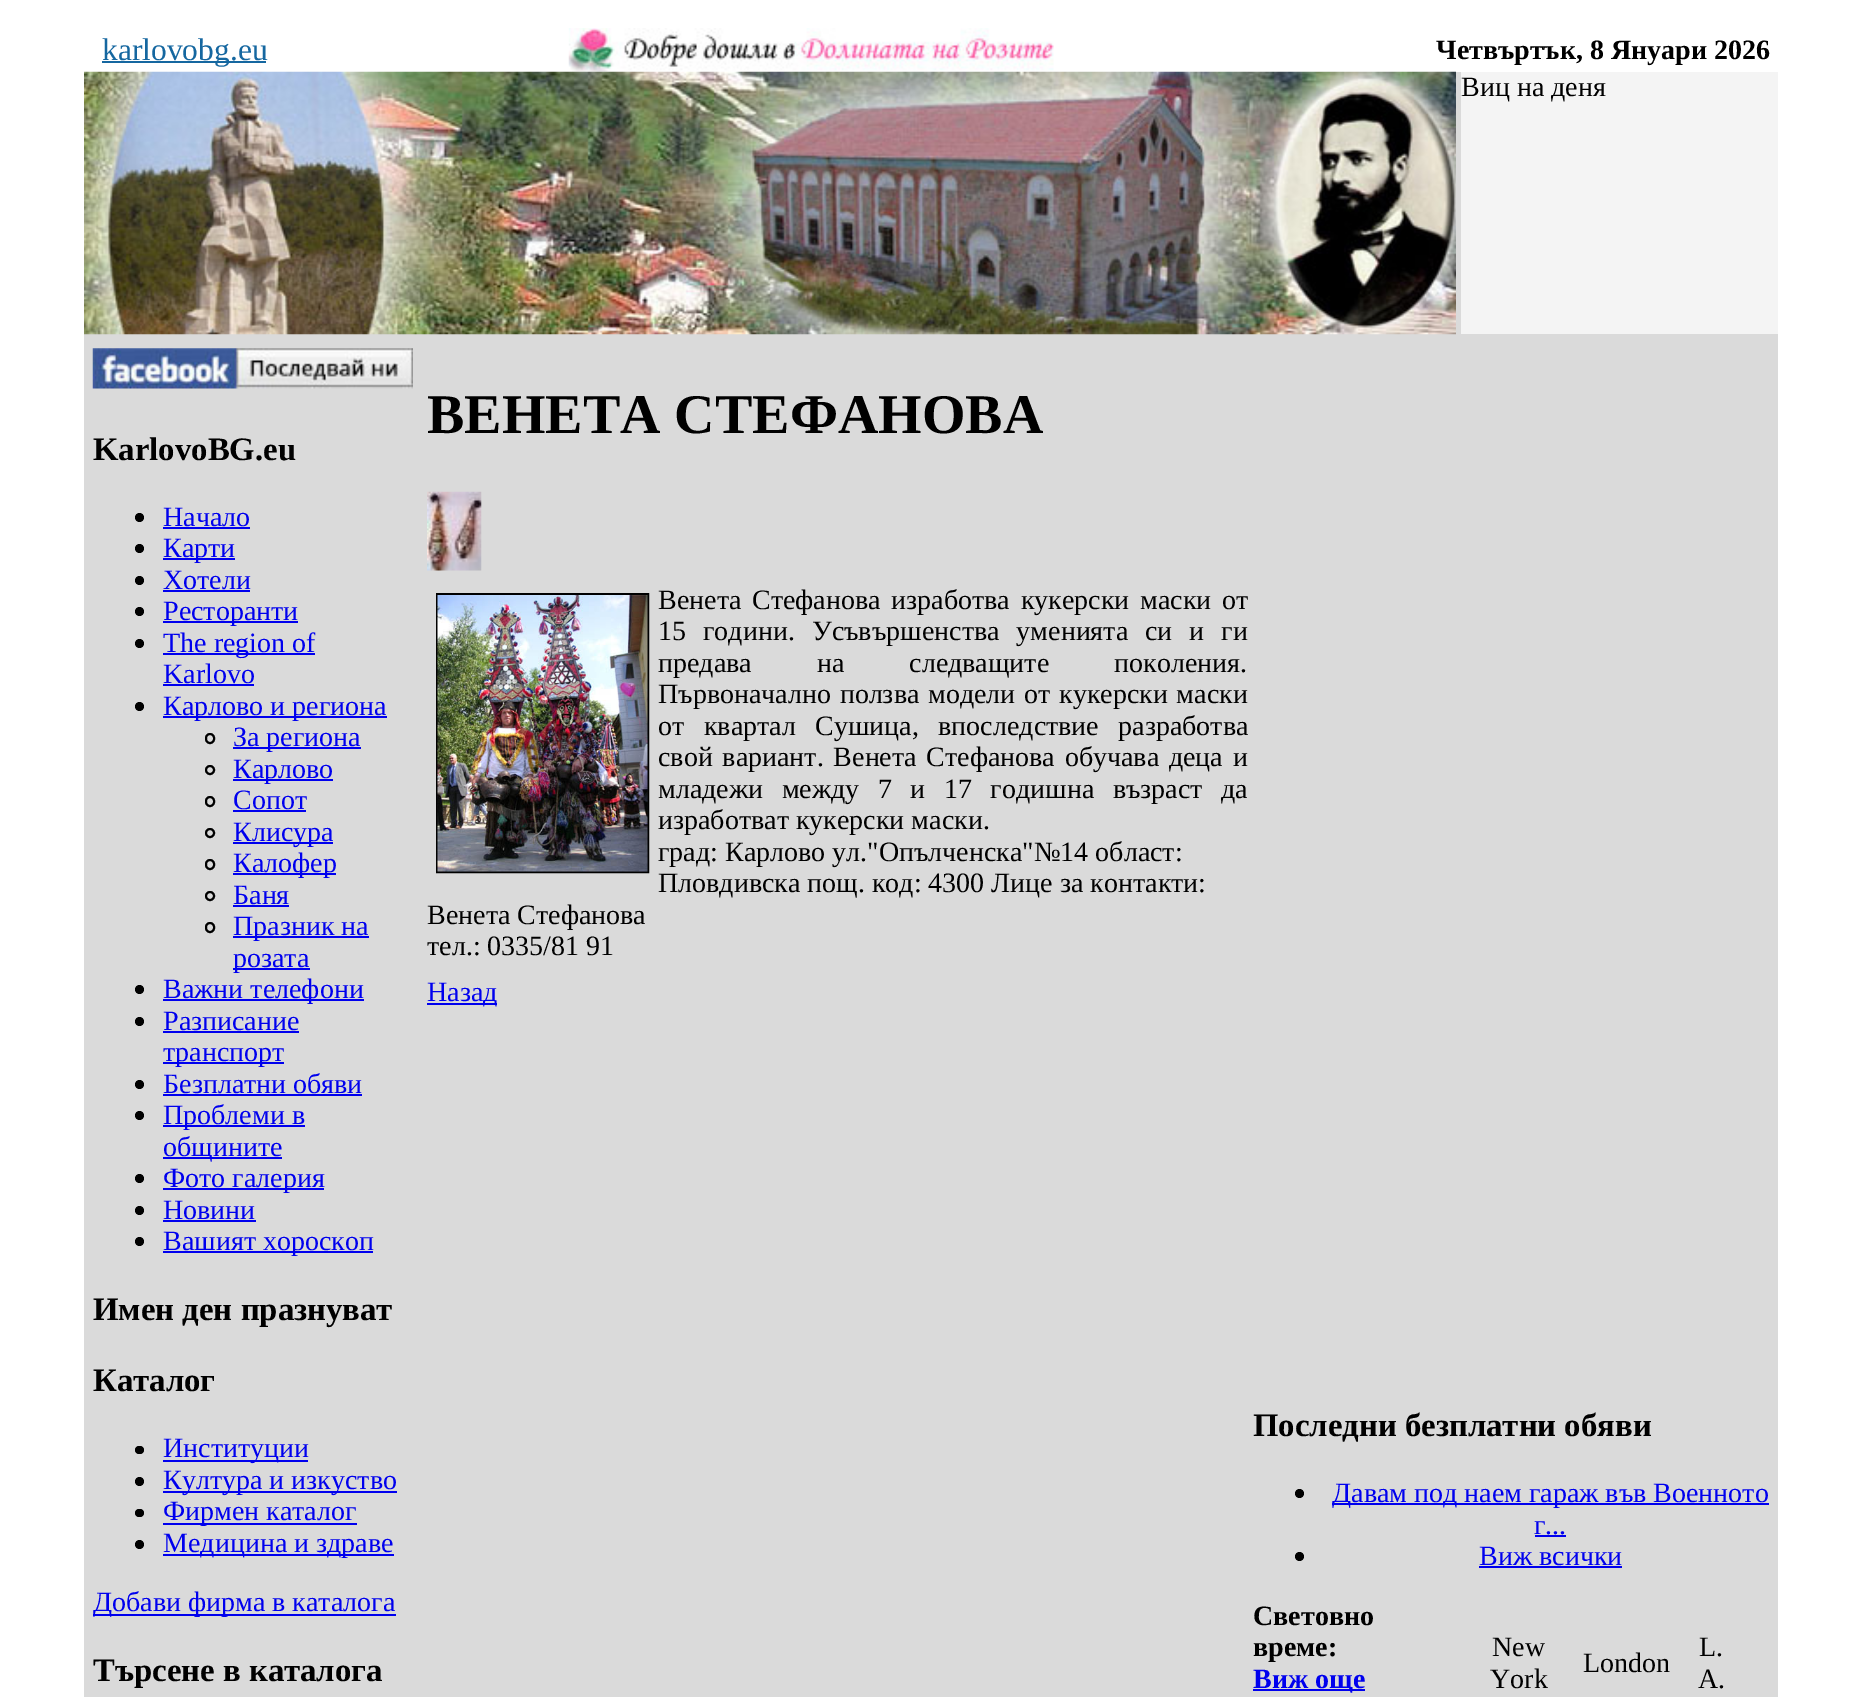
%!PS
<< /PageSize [1861 1697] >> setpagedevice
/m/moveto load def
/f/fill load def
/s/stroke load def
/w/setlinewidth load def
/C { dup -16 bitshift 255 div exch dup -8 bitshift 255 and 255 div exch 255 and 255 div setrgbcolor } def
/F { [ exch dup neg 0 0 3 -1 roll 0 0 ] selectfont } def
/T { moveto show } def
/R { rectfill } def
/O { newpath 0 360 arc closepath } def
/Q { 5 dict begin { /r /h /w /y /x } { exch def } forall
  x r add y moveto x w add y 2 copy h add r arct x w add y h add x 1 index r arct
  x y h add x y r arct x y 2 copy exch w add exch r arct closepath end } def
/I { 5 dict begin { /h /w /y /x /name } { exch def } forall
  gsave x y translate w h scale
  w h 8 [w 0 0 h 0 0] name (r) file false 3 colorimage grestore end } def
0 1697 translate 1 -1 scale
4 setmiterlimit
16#FFFFFF C
0 0 1861 1697 R
16#DADADA C
84 72 1694 1625 R
16#1567A0 C
102 61 164 2 R
/LiberationSerif-Regular 31.5 F
(karlovobg.eu) 102 60 T
(1.rgb) 568 28 486 44 I
/LiberationSerif-Bold 28 F
16#000000 C
(Четвъртък, 8 Януари 2026) 1436 59 T
(2.rgb) 84 71 1372 264 I
16#F4F4F4 C
1461 72 317 262 R
/LiberationSerif-Regular 28 F
16#000000 C
(Виц на деня) 1461 96 T
(3.rgb) 92 348 321 41 I
/LiberationSerif-Bold 32.75 F
(KarlovoBG.eu) 93 460 T
139.5 517.5 4.5 O f
/LiberationSerif-Regular 28 F
16#0000EE C
(Начало) 163 526 T
163 527 87 2 R
16#000000 C
139.5 548.5 4.5 O f
16#0000EE C
163 558 72 2 R
(Карти) 163 557 T
16#000000 C
139.5 580.5 4.5 O f
16#0000EE C
(Хотели) 163 589 T
163 590 87 2 R
16#000000 C
139.5 611.5 4.5 O f
16#0000EE C
163 621 135 2 R
(Ресторанти) 163 620 T
16#000000 C
139.5 643.5 4.5 O f
16#0000EE C
163 653 152 2 R
(The region of) 163 652 T
(Karlovo) 163 683 T
163 684 91 2 R
16#000000 C
139.5 706.5 4.5 O f
16#0000EE C
163 716 224 2 R
(Карлово и региона) 163 715 T
16#000000 C
2 w
206 734 8 9 4 Q s
16#0000EE C
233 747 128 2 R
(За региона) 233 746 T
16#000000 C
210 770 4 O s
16#0000EE C
233 779 100 2 R
(Карлово) 233 778 T
16#000000 C
206 797 8 9 4 Q s
16#0000EE C
(Сопот) 233 809 T
233 810 73 2 R
16#000000 C
210 833 4 O s
16#0000EE C
233 842 100 2 R
(Клисура) 233 841 T
16#000000 C
206 860 8 9 4 Q s
16#0000EE C
233 873 103 2 R
(Калофер) 233 872 T
16#000000 C
210 896 4 O s
16#0000EE C
(Баня) 233 904 T
233 905 56 2 R
16#000000 C
206 923 8 9 4 Q s
16#0000EE C
233 936 136 2 R
(Празник на) 233 935 T
233 968 77 2 R
(розата) 233 967 T
16#000000 C
139.5 989.5 4.5 O f
16#0000EE C
163 999 201 2 R
(Важни телефони) 163 998 T
16#000000 C
139.5 1021.5 4.5 O f
16#0000EE C
(Разписание) 163 1030 T
163 1031 136 2 R
163 1062 121 2 R
(транспорт) 163 1061 T
16#000000 C
139.5 1084.5 4.5 O f
16#0000EE C
(Безплатни обяви) 163 1093 T
163 1094 199 2 R
16#000000 C
139.5 1115.5 4.5 O f
16#0000EE C
163 1125 142 2 R
(Проблеми в) 163 1124 T
163 1157 119 2 R
(общините) 163 1156 T
16#000000 C
139.5 1178.5 4.5 O f
16#0000EE C
163 1188 161 2 R
(Фото галерия) 163 1187 T
16#000000 C
139.5 1210.5 4.5 O f
16#0000EE C
(Новини) 163 1219 T
163 1220 93 2 R
16#000000 C
139.5 1241.5 4.5 O f
16#0000EE C
163 1251 210 2 R
(Вашият хороскоп) 163 1250 T
/LiberationSerif-Bold 32.75 F
16#000000 C
(Имен ден празнуват) 93 1320 T
(Каталог) 93 1391 T
135 1446 9 8 4 Q f
16#0000EE C
163 1460 145 2 R
/LiberationSerif-Regular 28 F
(Институции) 163 1457 T
16#000000 C
139.5 1481.5 4.5 O f
16#0000EE C
163 1491 234 2 R
(Култура и изкуство) 163 1489 T
16#000000 C
135 1509 9 8 4 Q f
16#0000EE C
163 1523 194 2 R
(Фирмен каталог) 163 1520 T
16#000000 C
139.5 1544.5 4.5 O f
16#0000EE C
163 1554 231 2 R
(Медицина и здраве) 163 1552 T
93 1614 303 2 R
(Добави фирма в каталога) 93 1611 T
/LiberationSerif-Bold 32.75 F
16#000000 C
(Търсене в каталога) 93 1681 T
/LiberationSerif-Bold 56 F
(ВЕНЕТА СТЕФАНОВА) 427 433 T
(4.rgb) 427 491 55 80 I
437 594 211 278 rectstroke
(5.rgb) 437 595 211 277 I
/LiberationSerif-Regular 28 F
658 609 m 3.75 0 32 (Венета Стефанова изработва кукерски маски от) widthshow
658 640 m 10 0 32 (15 години. Усъвършенства уменията си и ги) widthshow
658 672 m 58 0 32 (предава на следващите поколения.) widthshow
658 703 m 1.75 0 32 (Първоначално ползва модели от кукерски маски) widthshow
658 735 m 12.5 0 32 (от квартал Сушица, впоследствие разработва) widthshow
658 766 m 2.75 0 32 (свой вариант. Венета Стефанова обучава деца и) widthshow
658 798 m 11.5 0 32 (младежи между 7 и 17 годишна възраст да) widthshow
(изработват кукерски маски.) 658 829 T
(град: Карлово ул."Опълченска"№14 област:) 658 861 T
(Пловдивска пощ. код: 4300 Лице за контакти:) 658 892 T
(Венета Стефанова) 427 924 T
(тел.: 0335/81 91) 427 955 T
16#0000EE C
427 1003 70 2 R
(Назад) 427 1001 T
/LiberationSerif-Bold 32.75 F
16#000000 C
(Последни безплатни обяви) 1253 1436 T
1299.5 1493.5 4.5 O f
16#0000EE C
1332 1503 437 2 R
/LiberationSerif-Regular 28 F
(Давам под наем гараж във Военното) 1332 1502 T
(г...) 1534 1534 T
1535 1535 31 2 R
16#000000 C
1299.5 1556.5 4.5 O f
16#0000EE C
(Виж всички) 1479 1565 T
1479 1566 143 2 R
/LiberationSerif-Bold 28 F
16#000000 C
(Световно) 1253 1625 T
(време:) 1253 1656 T
16#0000EE C
1253 1689 112 2 R
(Виж още) 1253 1688 T
/LiberationSerif-Regular 28 F
16#000000 C
(New) 1492 1656 T
(York) 1490 1688 T
(London) 1583 1672 T
(L.) 1699 1656 T
(A.) 1698 1688 T
showpage
